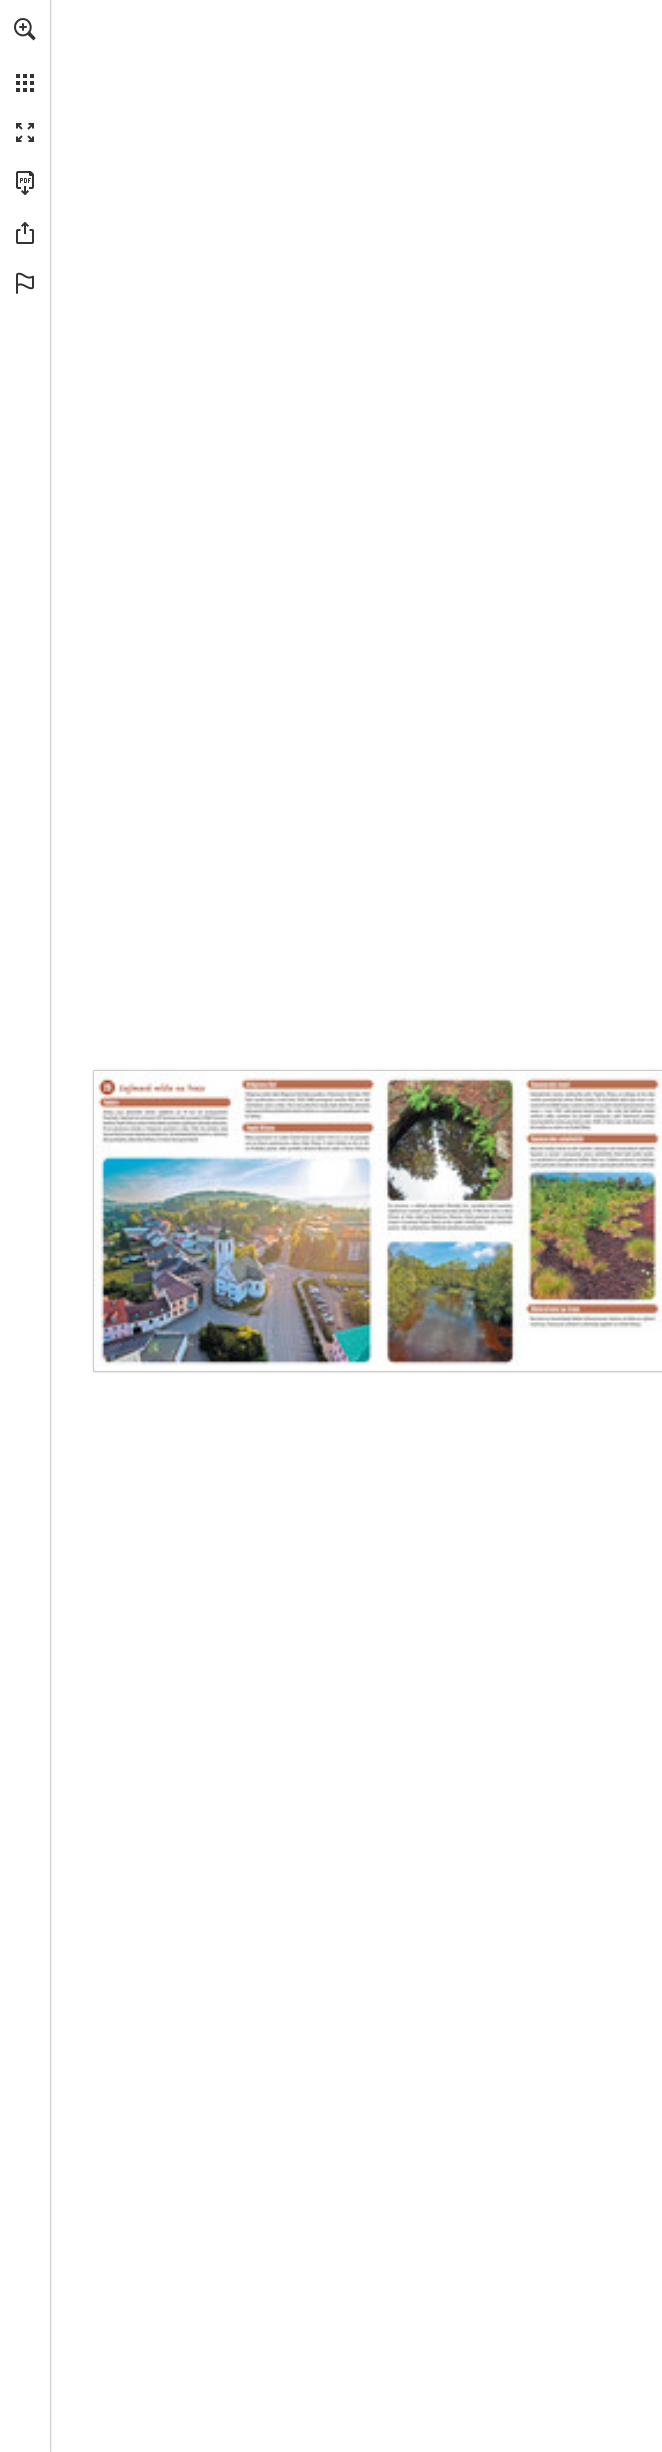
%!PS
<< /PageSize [662 2452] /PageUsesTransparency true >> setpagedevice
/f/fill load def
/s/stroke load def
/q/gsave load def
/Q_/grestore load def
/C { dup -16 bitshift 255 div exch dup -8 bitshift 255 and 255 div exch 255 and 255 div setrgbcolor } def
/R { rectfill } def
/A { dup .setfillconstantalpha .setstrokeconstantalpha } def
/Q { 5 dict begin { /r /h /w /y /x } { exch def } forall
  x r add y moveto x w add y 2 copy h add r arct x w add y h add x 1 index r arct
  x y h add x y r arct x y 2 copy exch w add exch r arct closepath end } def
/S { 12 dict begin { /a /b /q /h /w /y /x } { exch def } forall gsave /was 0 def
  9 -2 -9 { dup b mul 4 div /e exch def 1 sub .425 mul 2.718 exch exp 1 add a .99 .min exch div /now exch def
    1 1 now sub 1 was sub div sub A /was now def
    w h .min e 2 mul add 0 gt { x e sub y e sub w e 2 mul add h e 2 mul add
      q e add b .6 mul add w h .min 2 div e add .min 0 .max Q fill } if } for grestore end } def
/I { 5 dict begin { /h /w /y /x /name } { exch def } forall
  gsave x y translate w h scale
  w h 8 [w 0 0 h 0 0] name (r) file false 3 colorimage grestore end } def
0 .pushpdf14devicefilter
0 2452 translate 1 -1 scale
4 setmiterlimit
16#FFFFFF C
0 0 662 2452 R
16#000000 C
1 0 50 2452 0 .5 .2 S
16#FFFFFF C
0 0 50 2452 R
(1.rgb) 14 18 22 23 I
(2.rgb) 16 74 18 18 I
(3.rgb) 16 123 18 19 I
(4.rgb) 16 171 18 24 I
(5.rgb) 16 222 18 22 I
(6.rgb) 16 272 18 22 I
16#121212 C
92 1069 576 304 3 1 .05 S
16#FFFFFF C
93.5 1070.5 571 301 1.5 Q q f Q_
16#CCCCCC C
s
(7.rgb) 94 1071 568 296 I
.poppdf14devicefilter showpage
